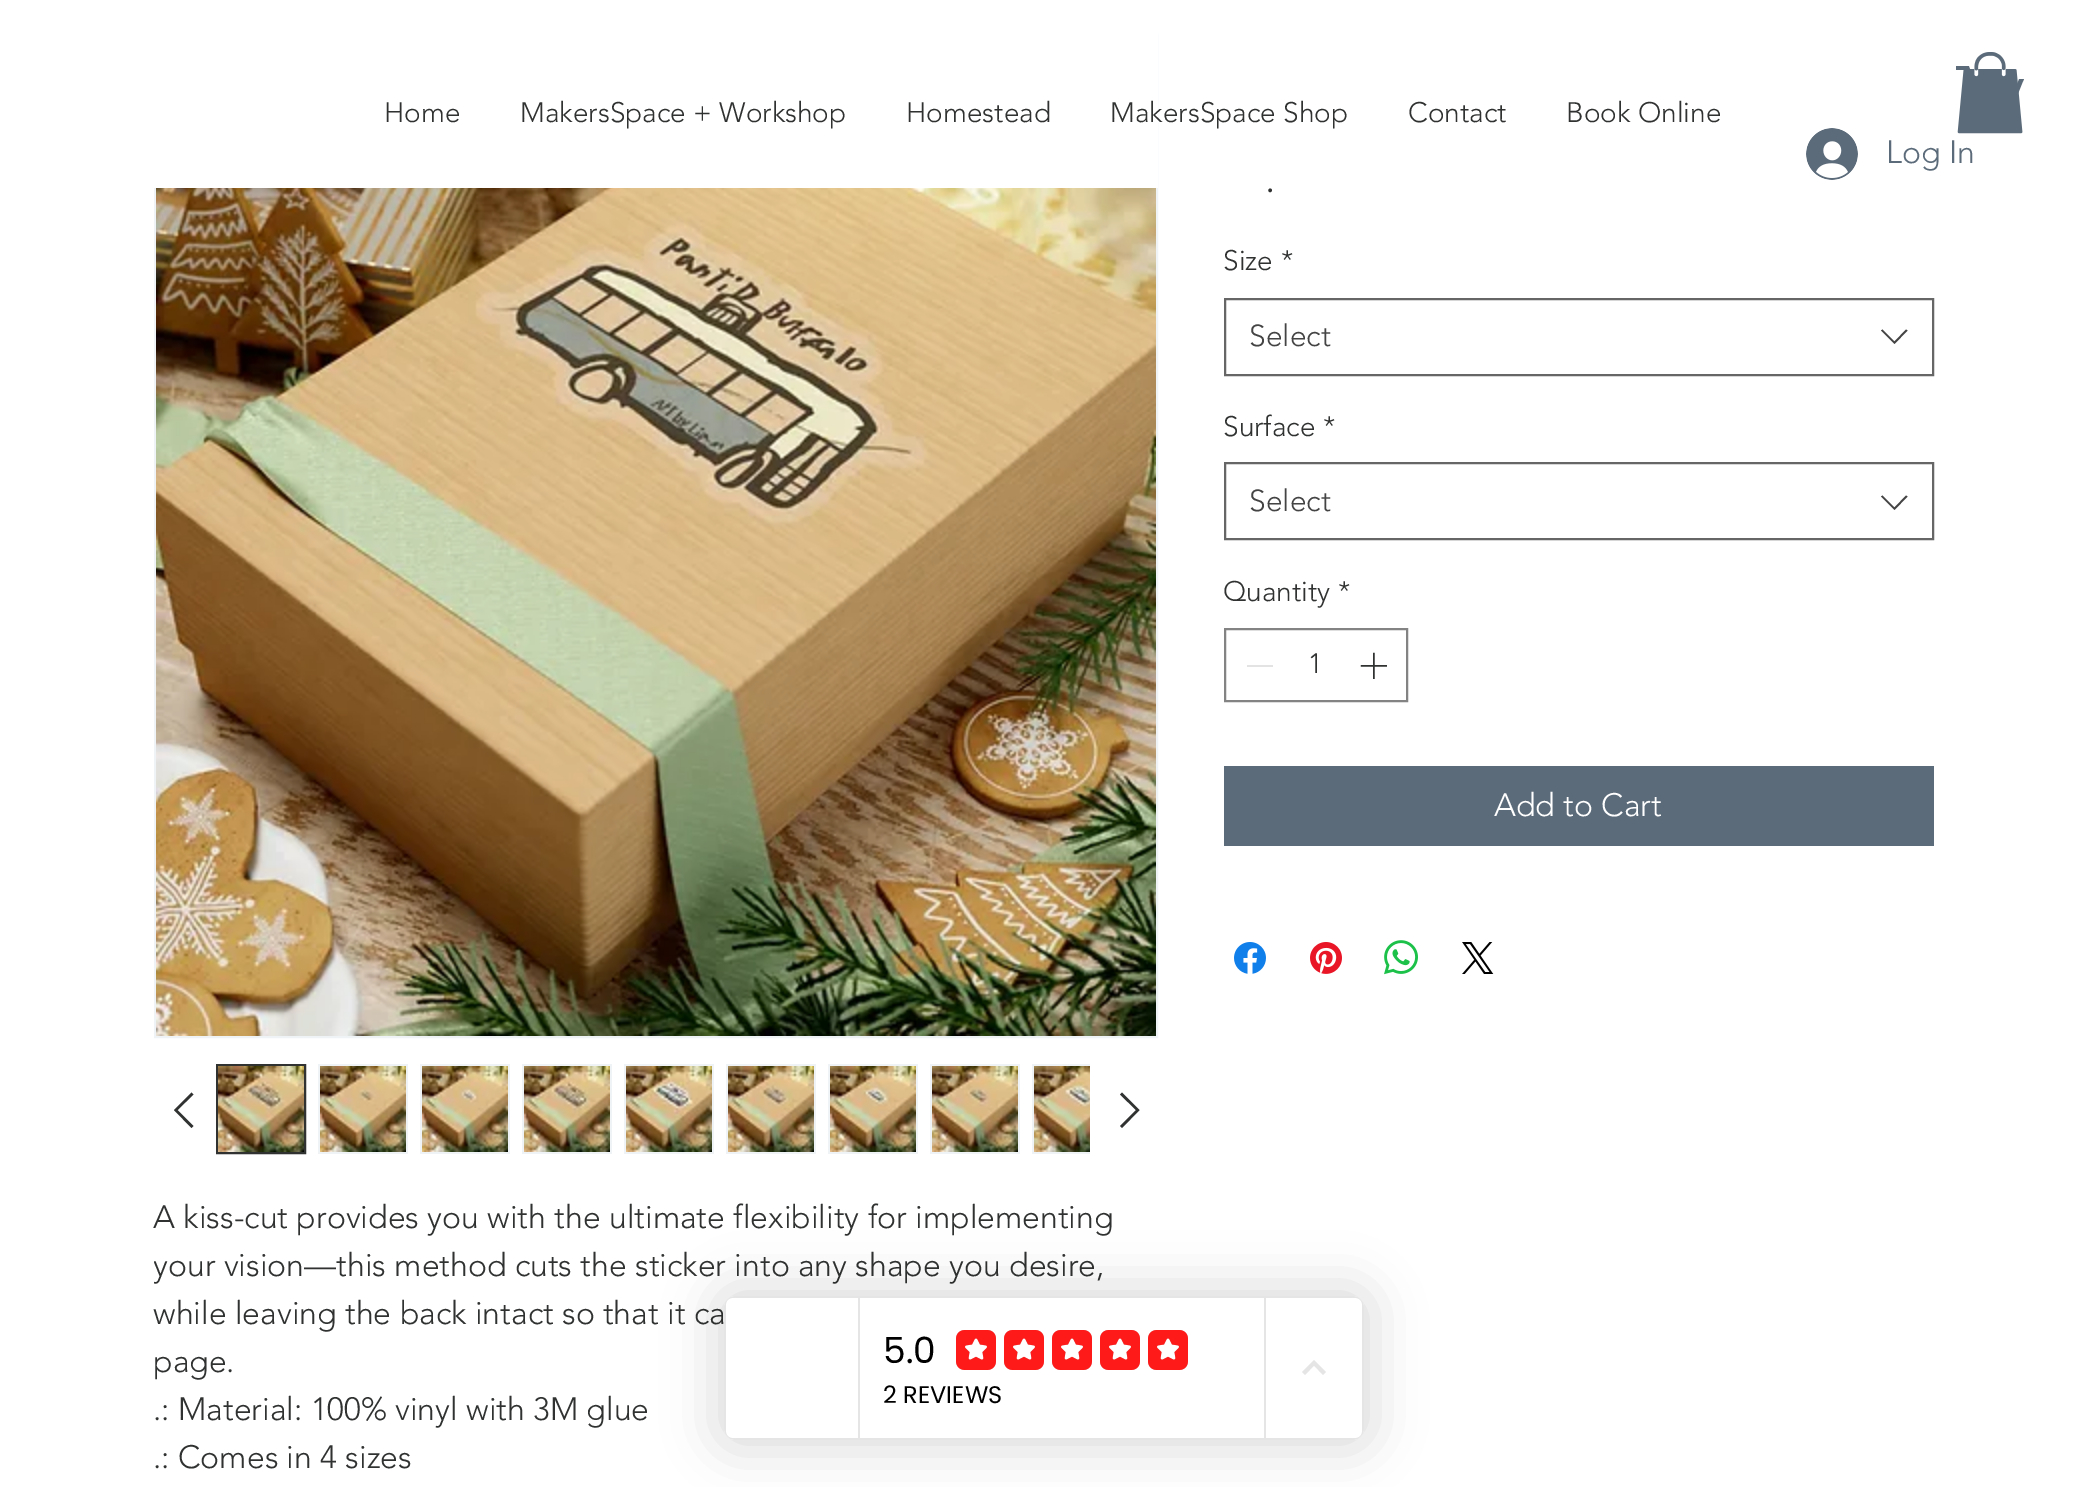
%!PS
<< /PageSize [2086 1487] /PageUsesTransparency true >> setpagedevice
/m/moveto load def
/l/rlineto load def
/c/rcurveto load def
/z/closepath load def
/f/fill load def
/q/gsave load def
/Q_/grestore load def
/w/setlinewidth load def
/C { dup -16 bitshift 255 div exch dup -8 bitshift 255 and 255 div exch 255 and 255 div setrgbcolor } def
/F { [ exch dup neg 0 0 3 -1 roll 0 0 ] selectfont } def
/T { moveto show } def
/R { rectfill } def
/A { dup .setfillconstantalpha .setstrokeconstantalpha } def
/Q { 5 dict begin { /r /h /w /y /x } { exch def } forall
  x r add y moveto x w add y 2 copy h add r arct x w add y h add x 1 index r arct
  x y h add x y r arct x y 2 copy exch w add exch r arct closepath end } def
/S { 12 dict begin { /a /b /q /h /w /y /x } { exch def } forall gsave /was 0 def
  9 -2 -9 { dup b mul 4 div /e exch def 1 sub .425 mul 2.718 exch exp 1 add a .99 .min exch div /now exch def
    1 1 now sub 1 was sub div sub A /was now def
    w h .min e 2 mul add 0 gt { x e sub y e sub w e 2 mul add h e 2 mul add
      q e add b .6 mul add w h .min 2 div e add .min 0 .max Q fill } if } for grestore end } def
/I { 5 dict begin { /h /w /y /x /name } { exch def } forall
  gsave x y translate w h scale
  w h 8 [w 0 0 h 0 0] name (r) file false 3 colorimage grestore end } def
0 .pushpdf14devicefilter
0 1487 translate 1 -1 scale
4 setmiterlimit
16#FFFFFF C
0 0 2086 1487 R
16#F0F3F6 C
2 w
155 35 1002 1002 rectstroke
16#FFFFFF C
154 34 1004 154 R
/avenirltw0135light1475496-Light 28 F
16#303131 C
(Home) 384 122 T
(MakersSpace + Workshop) 520 122 T
(Homestead) 906 122 T
(MakersSpace Shop) 1110 122 T
(Contact) 1408 122 T
(Book Online) 1566 122 T
16#5C6B7A C
2024 79 m -10 25 l -36 0 l -13 -34 l -9 0 l 0 -4 l 13 0 l 12 33 l 30 0 l 8 -20 l f
(1.rgb) 1957 52 66 82 I
(2.rgb) 1806 128 52 52 I
/avenirltw0135light1475496-Light 32 F
(Log In) 1886 163 T
/avenirltw0135light1475496-Light 40 F
16#303131 C
(.) 1265 192 T
/avenirltw0135light1475496-Light 28 F
(Size) 1223 270 T
(*) 1281 270 T
16#666666 C
1225 299 708 76 rectstroke
/avenirltw0135light1475496-Light 30 F
16#444444 C
(Select) 1249 346 T
1906 329.5 m 1.5 1 l -13 13.5 l -13.5 -13.5 l 1.5 -1 l 12 12 l z eofill
/avenirltw0135light1475496-Light 28 F
16#303131 C
(Surface) 1223 436 T
(*) 1323 436 T
16#666666 C
1225 463 708 76 rectstroke
/avenirltw0135light1475496-Light 30 F
16#444444 C
(Select) 1249 511 T
1906 495.5 m 1.5 1 l -13 13.5 l -13.5 -13.5 l 1.5 -1 l 12 12 l z eofill
/avenirltw0135light1475496-Light 28 F
16#303131 C
(Quantity) 1223 601 T
(*) 1338 601 T
16#838383 C
1225 629 182 72 rectstroke
16#E3E3E3 C
1247 665 26 2 R
16#303131 C
(1) 1308 673 T
(3.rgb) 1360 652 27 27 I
16#5C6B7A C
1224 766 710 80 R
/avenirltw0135light1475496-Light 32 F
16#FFFFFF C
(Add to Cart) 1494 816 T
(4.rgb) 1234 942 32 32 I
(5.rgb) 1310 942 32 32 I
(6.rgb) 1384 940 34 35 I
(7.rgb) 1462 942 32 32 I
(8.rgb) 156 188 1000 848 I
16#303131 C
191.5 1092.5 m 2 2 l -16 15.5 l 16 16 l -2 2 l -17.5 -18 l z eofill
217 1065 88 88 rectstroke
(9.rgb) 218 1066 86 86 I
16#F0F3F6 C
318 1064 90 90 R
(10.rgb) 320 1066 86 86 I
420 1064 90 90 R
(11.rgb) 422 1066 86 86 I
522 1064 90 90 R
(12.rgb) 524 1066 86 86 I
624 1064 90 90 R
(13.rgb) 626 1066 86 86 I
726 1064 90 90 R
(14.rgb) 728 1066 86 86 I
828 1064 90 90 R
(15.rgb) 830 1066 86 86 I
930 1064 90 90 R
(16.rgb) 932 1066 86 86 I
1032 1064 58 90 R
(17.rgb) 1034 1066 56 86 I
16#303131 C
1122 1092.5 m 17.5 17.5 l -17.5 18 l -2 -2 l 16 -16 l -16 -15.5 l z eofill
(A kiss-cut provides you with the ultimate flexibility for implementing) 153 1228 T
q
154 1194 1000 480 rectclip
(your vision—this method cuts the sticker into any shape you desire,) 153 1276 T
Q_
(while leaving the back intact so that it ca) 153 1324 T
(page.) 153 1372 T
(.: Material: 100% vinyl with 3M glue) 153 1420 T
(.: Comes in 4 sizes) 153 1468 T
16#000000 C
712 1284 664 168 24 24 .12 S
16#FFFFFF C
724 1296 640 144 12 Q f
16#E5E5E5 C
736 1296 m -7 0 -12 5 -12 12 c 0 120 l 0 7 5 12 12 12 c 616 0 l 7 0 12 -5 12 -12 c 0 -120 l 0 -7 -5 -12 -12 -12 c z 732 1298 m -3 0 -6 3 -6 6 c 0 128 l 0 3 3 6 6 6 c 624 0 l 3 0 6 -3 6 -6 c 0 -128 l 0 -3 -3 -6 -6 -6 c z eofill
858 1298 2 140 R
1264 1298 2 140 R
/Poppins-Regular 36 F
16#000000 C
(5.0) 883 1363 T
(18.rgb) 956 1330 40 40 I
(19.rgb) 956 1330 40 40 I
(18.rgb) 1004 1330 40 40 I
(19.rgb) 1004 1330 40 40 I
(18.rgb) 1052 1330 40 40 I
(19.rgb) 1052 1330 40 40 I
(18.rgb) 1100 1330 40 40 I
(19.rgb) 1100 1330 40 40 I
(18.rgb) 1148 1330 40 40 I
(19.rgb) 1148 1330 40 40 I
/Poppins-Regular 24 F
(2 REVIEWS) 883 1403 T
16#E5E5E5 C
1305 1375 m 9 -9.5 l 9 9.5 l 3 -3 l -12 -12 l -12 12 l z f
.poppdf14devicefilter showpage
